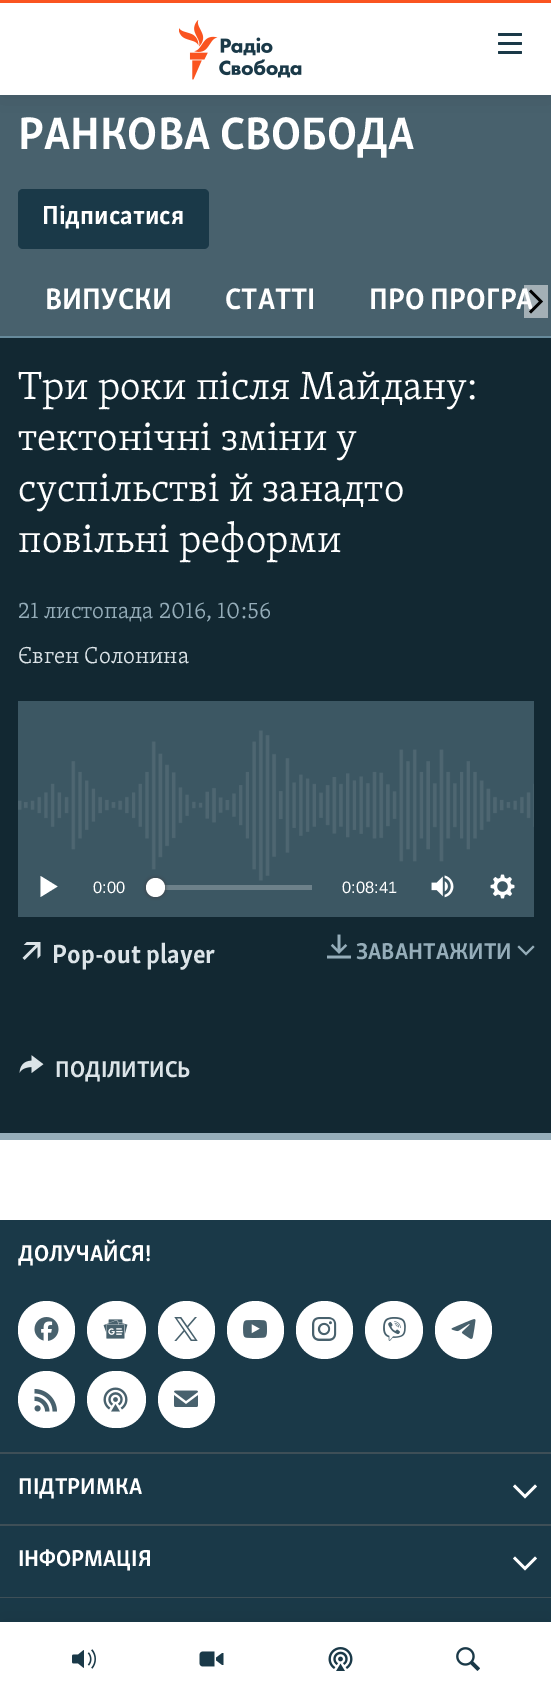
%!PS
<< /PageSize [551 1696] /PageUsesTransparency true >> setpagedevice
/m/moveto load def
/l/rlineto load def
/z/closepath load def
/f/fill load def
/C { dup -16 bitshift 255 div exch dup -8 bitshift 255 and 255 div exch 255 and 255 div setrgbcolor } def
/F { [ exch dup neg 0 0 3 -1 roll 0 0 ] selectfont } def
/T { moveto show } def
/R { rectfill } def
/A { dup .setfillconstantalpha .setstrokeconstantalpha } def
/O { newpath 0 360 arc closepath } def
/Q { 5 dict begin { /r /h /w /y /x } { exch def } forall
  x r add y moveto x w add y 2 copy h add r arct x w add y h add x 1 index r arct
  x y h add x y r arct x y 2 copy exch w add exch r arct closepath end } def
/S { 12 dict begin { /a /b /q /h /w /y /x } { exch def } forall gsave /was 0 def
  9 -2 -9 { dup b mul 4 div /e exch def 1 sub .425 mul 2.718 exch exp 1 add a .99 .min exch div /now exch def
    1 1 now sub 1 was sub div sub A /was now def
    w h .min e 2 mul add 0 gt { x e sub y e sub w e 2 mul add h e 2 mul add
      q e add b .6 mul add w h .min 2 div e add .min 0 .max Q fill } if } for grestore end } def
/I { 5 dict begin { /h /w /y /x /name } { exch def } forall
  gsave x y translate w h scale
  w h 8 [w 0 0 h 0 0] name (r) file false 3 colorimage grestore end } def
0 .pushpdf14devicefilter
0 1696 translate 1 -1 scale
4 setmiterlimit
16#FFFFFF C
0 0 551 1696 R
16#48616D C
0 95 551 241 R
16#000000 C
0 0 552 95 0 15 .1 S
16#FFFFFF C
0 3 551 92 R
16#FA5420 C
0 0 551 3 R
(1.rgb) 179 20 123 60 I
(2.rgb) 498 33 24 21 I
16#1A3948 C
0 1220 551 402 R
16#3E4F57 C
0 1597 551 1 R
16#000000 C
0 1622 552 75 0 15 .1 S
16#FFFFFF C
0 1622 551 74 R
(3.rgb) 72 1649 24 20 I
(4.rgb) 199 1651 25 16 I
(5.rgb) 328 1647 25 24 I
(6.rgb) 456 1647 24 24 I
/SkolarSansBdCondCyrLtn-Bold 46.75 F
(РАНКОВА СВОБОДА) 18 149 T
16#1A3948 C
18 189 191 60 5 Q f
/SkolarSansBdCondCyrLtn-Bold 27 F
16#FFFFFF C
(Підписатися) 42 224 T
/SkolarSansBdCondCyrLtn-Bold 30.5 F
(ВИПУСКИ) 45 309 T
(СТАТТІ) 225 309 T
(ПРО ПРОГРА) 369 309 T
0.5 A
524 285 24 33 R
1 A
16#000000 C
531 313.5 m 12 -12 l -12 -12 l -2 2 l 10 10 l -10 10 l z f
16#122832 C
0 338 551 795 R
16#678A9B C
0 336 551 2 R
16#95ADB9 C
0 1133 551 7 R
/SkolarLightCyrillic-Light 40.5 F
16#FFFFFF C
(Три роки після Майдану:) 18 399 T
(тектонічні зміни у) 18 450 T
(суспільстві й занадто) 18 501 T
(повільні реформи) 18 552 T
/SkolarLightCyrillic-Light 23.6 F
16#95ADB9 C
(21 листопада 2016, 10:56) 18 618 T
16#DCE4E8 C
(Євген Солонина) 18 663 T
16#3C5763 C
18 701 516 216 R
(7.rgb) 18 730 516 151 I
16#FFFFFF C
40.5 897 m 17 -10.5 l -17 -10.5 l z f
/LiberationSans-Regular 16.5 F
(0:00) 93 893 T
16#6D818A C
164 885 148 5 R
16#414144 C
146 878 19 19 9.5 2 1 S
16#FFFFFF C
155.5 887.5 9.5 O f
(0:08:41) 342 893 T
(8.rgb) 431 875 23 23 I
(9.rgb) 490 874 25 25 I
(10.rgb) 22 942 19 18 I
/SkolarSansBdCondCyrLtn-Bold 27 F
16#DCE4E8 C
(Pop-out player) 52 963 T
(11.rgb) 327 934 24 25 I
/SkolarSansBdCondCyrLtn-Bold 23.6 F
16#95ADB9 C
(ЗАВАНТАЖИТИ) 356 959 T
517.5 947 m 8.5 8.5 l 8.5 -8.5 l -1.5 -1.5 l -7 7 l -7 -7 l z f
(12.rgb) 19 1055 25 18 I
16#DCE4E8 C
(ПОДІЛИТИСЬ) 55 1077 T
16#FFFFFF C
(ДОЛУЧАЙСЯ!) 18 1261 T
18 1301 57 58 28.5 Q f
(13.rgb) 34 1317 25 24 I
87 1301 59 58 29 Q f
(14.rgb) 103 1319 25 20 I
158 1301 57 58 28.5 Q f
(15.rgb) 174 1317 24 24 I
227 1301 57 58 28.5 Q f
(16.rgb) 243 1320 24 18 I
296 1301 57 58 28.5 Q f
(17.rgb) 312 1317 25 24 I
394 1330 29 O f
(18.rgb) 383 1317 23 24 I
435 1301 57 58 28.5 Q f
(19.rgb) 451 1319 25 20 I
46.5 1399.5 28.5 O f
(20.rgb) 34 1389 23 23 I
87 1371 59 57 28.5 Q f
(21.rgb) 103 1387 25 25 I
186.5 1399.5 28.5 O f
(22.rgb) 174 1390 24 17 I
16#3E4F57 C
0 1452 551 2 R
16#FFFFFF C
(ПІДТРИМКА) 18 1494 T
513 1486.5 m 12 12 l 12 -12 l -2 -2 l -10 10 l -10 -10 l z f
16#3E4F57 C
0 1524 551 2 R
16#FFFFFF C
(ІНФОРМАЦІЯ) 18 1566 T
513 1558.5 m 12 12 l 12 -12 l -2 -2 l -10 10 l -10 -10 l z f
.poppdf14devicefilter showpage
